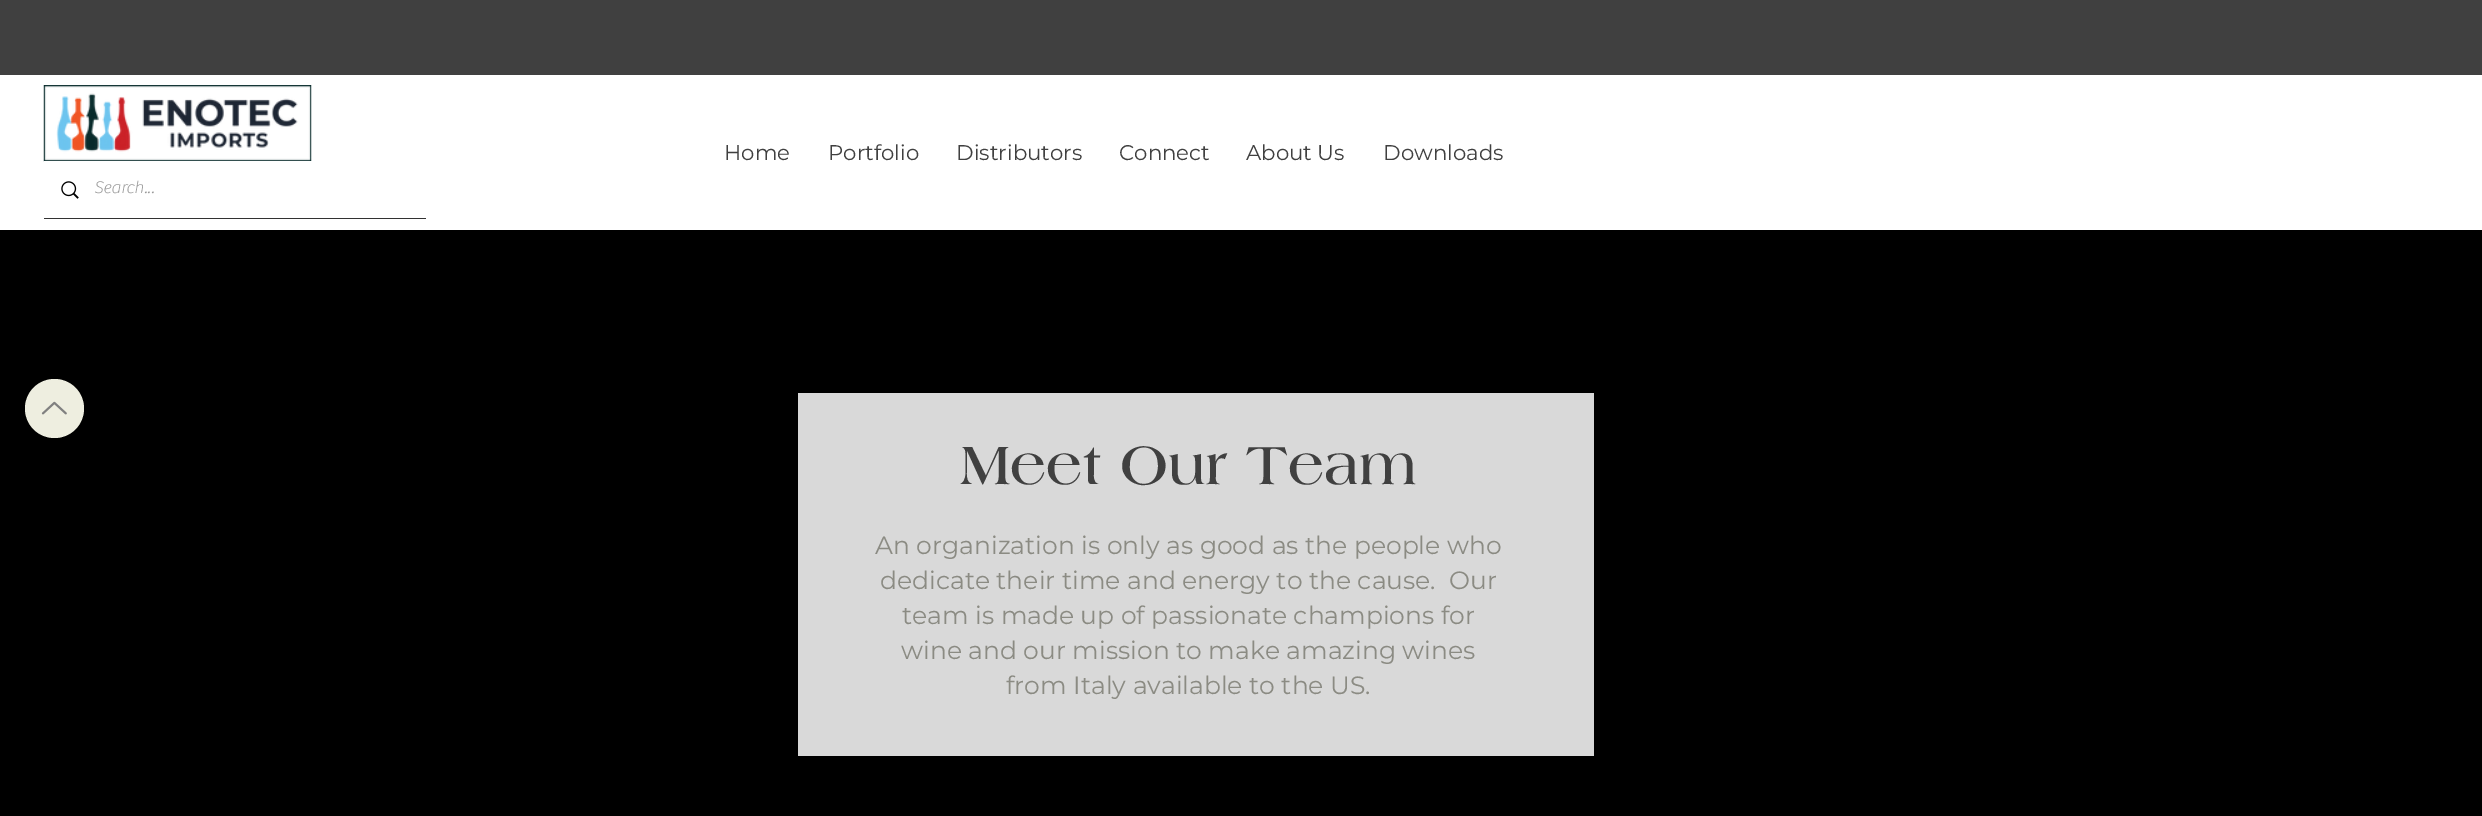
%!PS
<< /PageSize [2482 816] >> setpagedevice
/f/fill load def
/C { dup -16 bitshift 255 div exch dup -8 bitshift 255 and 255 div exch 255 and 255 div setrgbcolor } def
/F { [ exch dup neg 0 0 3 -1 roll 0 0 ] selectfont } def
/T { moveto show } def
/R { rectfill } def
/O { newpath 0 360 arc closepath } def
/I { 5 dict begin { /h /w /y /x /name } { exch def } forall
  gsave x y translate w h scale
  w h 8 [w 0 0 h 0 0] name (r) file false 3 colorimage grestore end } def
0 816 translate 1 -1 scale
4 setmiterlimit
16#000000 C
0 0 2482 816 R
16#404040 C
0 0 2482 75 R
16#FFFFFF C
0 75 2482 155 R
/Montserrat-Regular 21.25 F
16#404040 C
(Home) 724 160 T
(Portfolio) 828 160 T
(Distributors) 956 160 T
(Connect) 1119 160 T
(About Us) 1246 160 T
(Downloads) 1383 160 T
(1.rgb) 43 85 269 77 I
16#323232 C
44 218 382 1 R
16#FFFFFF C
44 161 268 1 R
(2.rgb) 61 181 18 18 I
/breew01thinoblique-Thin 17.5 F
16#999999 C
(Search...) 94 193 T
16#EEEEE0 C
54.5 408.5 29.5 O f
(3.rgb) 41 401 26 14 I
16#D9D9D9 C
798 393 796 363 R
/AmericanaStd-Bold 57.5 F
16#404040 C
(Meet Our Team) 960 484 T
/Montserrat-Regular 25 F
16#8B8B83 C
(An organization is only as good as the people who) 875 554 T
(dedicate their time and energy to the cause.  Our) 880 589 T
(team is made up of passionate champions for) 902 624 T
(wine and our mission to make amazing wines) 901 659 T
(from Italy available to the US.) 1006 694 T
showpage
